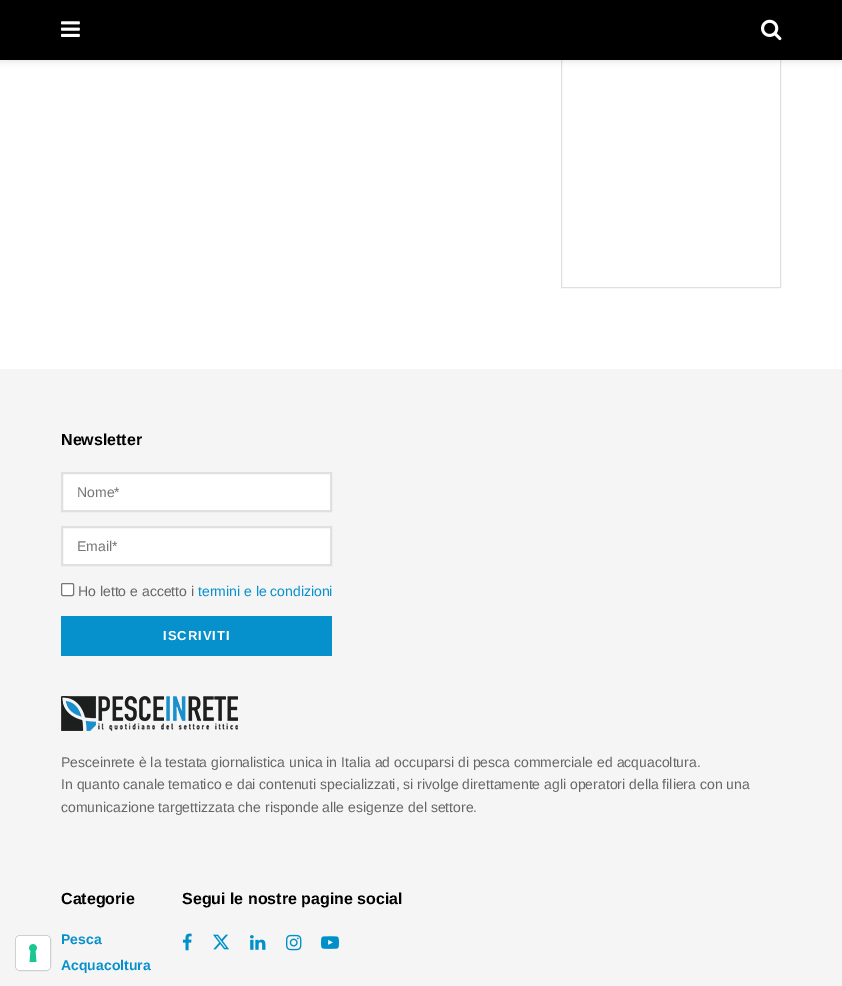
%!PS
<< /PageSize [842 986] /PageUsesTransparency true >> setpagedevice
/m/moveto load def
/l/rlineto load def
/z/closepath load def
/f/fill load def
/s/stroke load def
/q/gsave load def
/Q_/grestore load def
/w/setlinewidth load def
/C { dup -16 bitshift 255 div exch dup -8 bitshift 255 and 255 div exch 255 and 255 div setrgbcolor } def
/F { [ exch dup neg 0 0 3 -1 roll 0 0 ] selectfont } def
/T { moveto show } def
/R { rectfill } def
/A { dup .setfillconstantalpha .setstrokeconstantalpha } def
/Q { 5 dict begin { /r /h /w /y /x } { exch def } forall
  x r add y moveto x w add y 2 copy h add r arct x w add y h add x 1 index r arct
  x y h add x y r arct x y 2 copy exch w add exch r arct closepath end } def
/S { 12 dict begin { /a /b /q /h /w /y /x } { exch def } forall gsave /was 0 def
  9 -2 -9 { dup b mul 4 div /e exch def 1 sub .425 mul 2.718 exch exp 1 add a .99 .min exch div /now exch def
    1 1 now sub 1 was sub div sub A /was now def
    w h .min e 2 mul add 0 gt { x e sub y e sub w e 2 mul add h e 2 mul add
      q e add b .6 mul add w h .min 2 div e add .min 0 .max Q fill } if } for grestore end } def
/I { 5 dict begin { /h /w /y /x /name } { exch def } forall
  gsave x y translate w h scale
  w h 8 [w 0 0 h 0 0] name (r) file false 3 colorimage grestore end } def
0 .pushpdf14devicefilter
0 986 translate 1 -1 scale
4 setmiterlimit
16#FFFFFF C
0 0 842 986 R
16#F5F5F5 C
0 369 842 617 R
16#D0D0D0 C
15.5 935.5 35 35 4.5 Q s
16#FFFFFF C
16 936 34 34 4 Q f
(1.rgb) 29 944 8 18 I
16#E0E0E0 C
561.5 -.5 219 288 rectstroke
16#000000 C
0 2 842 60 0 3 .1 S
0 0 842 60 R
(2.rgb) 61 21 19 16 I
(3.rgb) 761 19 21 22 I
/LiberationSans-Bold 16 F
(Newsletter) 61 445 T
16#FFFFFF C
62 473 m 269 0 l 0 38 l -269 0 l z q f Q_
16#E0E0E0 C
2 w
s
/LiberationSans-Regular 14 F
16#757575 C
(Nome*) 77 497 T
16#FFFFFF C
62 527 m 269 0 l 0 38 l -269 0 l z q f Q_
16#E0E0E0 C
s
16#757575 C
(Email*) 77 551 T
16#FFFFFF C
61.5 583.5 12 12 1.5 Q q f Q_
16#767676 C
1 w
s
16#666666 C
(Ho letto e accetto i) 78 596 T
16#0690CC C
(termini e le condizioni) 198 596 T
61 616 271 40 R
/LiberationSans-Bold 13 F
16#FFFFFF C
163 640 m 1 0 (ISCRIVITI) ashow
(4.rgb) 61 696 177 35 I
/LiberationSans-Regular 14 F
16#666666 C
(Pesceinrete è la testata giornalistica unica in Italia ad occuparsi di pesca commerciale ed acquacoltura.) 61 767 T
(In quanto canale tematico e dai contenuti specializzati, si rivolge direttamente agli operatori della filiera con una) 61 789 T
(comunicazione targettizzata che risponde alle esigenze del settore.) 61 812 T
/LiberationSans-Bold 16 F
16#000000 C
(Categorie) 61 904 T
/LiberationSans-Bold 14 F
16#0690CC C
(Pesca) 61 944 T
(Acquacoltura) 61 970 T
/LiberationSans-Bold 16 F
16#000000 C
(Segui le nostre pagine social) 182 904 T
(5.rgb) 182 933 10 18 I
(6.rgb) 213 934 16 16 I
(7.rgb) 250 935 16 15 I
(8.rgb) 286 934 16 17 I
(9.rgb) 321 936 18 13 I
.poppdf14devicefilter showpage
